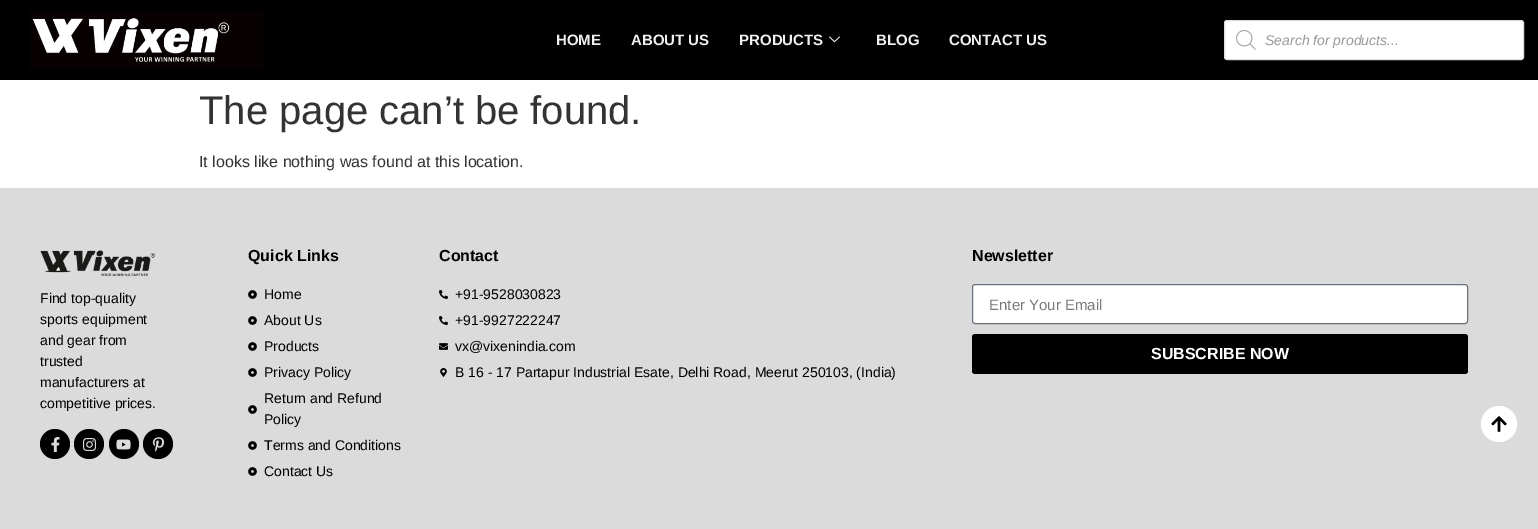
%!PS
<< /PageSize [1538 529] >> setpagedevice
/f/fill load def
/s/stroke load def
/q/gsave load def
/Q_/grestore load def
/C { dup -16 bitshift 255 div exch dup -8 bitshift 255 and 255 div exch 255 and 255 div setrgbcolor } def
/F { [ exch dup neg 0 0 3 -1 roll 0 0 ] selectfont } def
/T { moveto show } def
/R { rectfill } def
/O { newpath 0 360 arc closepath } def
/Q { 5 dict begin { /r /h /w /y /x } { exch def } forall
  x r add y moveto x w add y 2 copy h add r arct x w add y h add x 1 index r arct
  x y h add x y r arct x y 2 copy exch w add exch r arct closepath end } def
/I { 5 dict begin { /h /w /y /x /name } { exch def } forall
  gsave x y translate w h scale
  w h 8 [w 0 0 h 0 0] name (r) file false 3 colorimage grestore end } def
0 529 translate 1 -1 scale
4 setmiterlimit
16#FFFFFF C
0 0 1538 529 R
16#000000 C
0 0 1538 80 R
16#080101 C
30 10 233 60 R
(1.rgb) 32 18 198 44 I
/LiberationSans-Bold 15 F
16#F0F0F0 C
(HOME) 556 45 T
(ABOUT US) 631 45 T
(PRODUCTS) 739 45 T
(2.rgb) 829 36 11 7 I
(BLOG) 876 45 T
(CONTACT US) 949 45 T
16#FFFFFF C
1224.5 20.5 299 39 2.5 Q q f Q_
16#DDDDDD C
s
(3.rgb) 1236 30 20 20 I
/LiberationSans-Italic 14 F
16#999999 C
(Search for products...) 1265 45 T
/LiberationSans-Regular 40 F
16#333333 C
(The page can’t be found.) 199 124 T
/LiberationSans-Regular 16 F
(It looks like nothing was found at this location.) 199 167 T
16#DBDBDB C
0 188 1538 341 R
(4.rgb) 40 250 116 27 I
/LiberationSans-Regular 14 F
16#000000 C
(Find top-quality) 40 303 T
(sports equipment) 40 324 T
(and gear from) 40 345 T
(trusted) 40 366 T
(manufacturers at) 40 387 T
(competitive prices.) 40 408 T
55 444 15 O f
(5.rgb) 51 437 9 15 I
89 444 15 O f
(6.rgb) 83 438 14 13 I
124 444 15 O f
(7.rgb) 116 439 15 11 I
158 444 15 O f
(8.rgb) 152 437 13 15 I
/LiberationSans-Bold 16 F
(Quick Links) 248 261 T
(9.rgb) 248 290 9 9 I
/LiberationSans-Regular 14 F
(Home) 264 299 T
(9.rgb) 248 316 9 9 I
(About Us) 264 325 T
(9.rgb) 248 342 9 9 I
(Products) 264 351 T
(9.rgb) 248 368 9 9 I
(Privacy Policy) 264 377 T
(9.rgb) 248 405 9 9 I
(Return and Refund) 264 403 T
(Policy) 264 424 T
(9.rgb) 248 441 9 9 I
(Terms and Conditions) 264 450 T
(9.rgb) 248 467 9 9 I
(Contact Us) 264 476 T
/LiberationSans-Bold 16 F
(Contact) 439 261 T
(10.rgb) 439 290 9 9 I
/LiberationSans-Regular 14 F
(+91-9528030823) 455 299 T
(10.rgb) 439 316 9 9 I
(+91-9927222247) 455 325 T
(11.rgb) 439 343 9 7 I
(vx@vixenindia.com) 455 351 T
(12.rgb) 440 368 7 9 I
(B 16 - 17 Partapur Industrial Esate, Delhi Road, Meerut 250103, \(India\)) 455 377 T
/LiberationSans-Bold 16 F
(Newsletter) 972 261 T
16#FFFFFF C
972.5 284.5 495 39 2.5 Q q f Q_
16#69727D C
s
/LiberationSans-Regular 15 F
16#797A7C C
(Enter Your Email) 989 310 T
16#000000 C
972 334 496 40 3 Q f
/LiberationSans-Bold 16 F
16#FFFFFF C
(SUBSCRIBE NOW) 1151 359 T
1499 424 18 O f
(13.rgb) 1491 416 16 16 I
showpage
